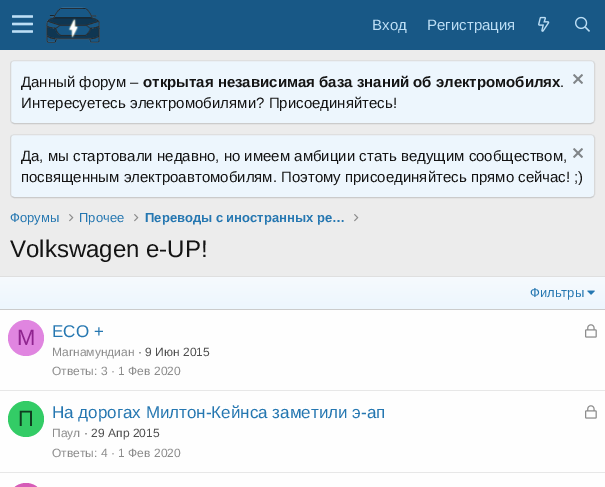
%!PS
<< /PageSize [605 487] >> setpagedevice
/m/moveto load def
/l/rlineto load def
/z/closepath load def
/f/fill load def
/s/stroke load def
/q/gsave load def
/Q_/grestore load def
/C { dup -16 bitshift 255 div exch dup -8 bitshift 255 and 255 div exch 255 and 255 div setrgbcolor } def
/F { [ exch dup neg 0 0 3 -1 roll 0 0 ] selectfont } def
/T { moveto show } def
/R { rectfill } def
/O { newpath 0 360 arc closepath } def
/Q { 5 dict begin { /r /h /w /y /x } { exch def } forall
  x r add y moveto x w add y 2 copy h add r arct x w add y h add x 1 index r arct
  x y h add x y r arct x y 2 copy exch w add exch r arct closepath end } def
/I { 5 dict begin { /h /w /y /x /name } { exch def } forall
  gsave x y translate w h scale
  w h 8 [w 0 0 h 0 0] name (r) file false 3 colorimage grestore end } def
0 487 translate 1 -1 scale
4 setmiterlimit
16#ECECEC C
0 0 605 487 R
16#185886 C
0 0 605 50 R
(1.rgb) 12 15 21 18 I
(2.rgb) 46 7 54 36 I
/LiberationSans-Regular 15 F
16#BCDEF5 C
(Вход) 372 30 T
(Регистрация) 427 30 T
(3.rgb) 538 16 12 16 I
(4.rgb) 575 16 15 16 I
16#EDF6FD C
10 60 585 64 4 Q f
16#DFDFDF C
11.5 61.5 m 2.5 -1 l 577 0 l 2.5 1 l s
16#D8D8D8 C
593.5 61.5 m 1 2 l 0 57 l -1 2 l s
16#CBCBCB C
593.5 122.5 m -2.5 1 l -577 0 l -2.5 -1 l s
16#D8D8D8 C
11.5 122.5 m -1 -2 l 0 -57 l 1 -2 l s
16#141414 C
(Данный форум –) 21 87 T
/LiberationSans-Bold 15 F
(открытая независимая база знаний об электромобилях) 143 87 T
/LiberationSans-Regular 15 F
(.) 560 87 T
(5.rgb) 573 74 10 10 I
(Интересуетесь электромобилями? Присоединяйтесь!) 21 108 T
16#EDF6FD C
10 134 585 64 4 Q f
16#DFDFDF C
11.5 135.5 m 2.5 -1 l 577 0 l 2.5 1 l s
16#D8D8D8 C
593.5 135.5 m 1 2 l 0 57 l -1 2 l s
16#CBCBCB C
593.5 196.5 m -2.5 1 l -577 0 l -2.5 -1 l s
16#D8D8D8 C
11.5 196.5 m -1 -2 l 0 -57 l 1 -2 l s
16#141414 C
(Да, мы стартовали недавно, но имеем амбиции стать ведущим сообществом,) 21 161 T
(5.rgb) 573 148 10 10 I
(посвященным электроавтомобилям. Поэтому присоединяйтесь прямо сейчас! ;\)) 21 182 T
/LiberationSans-Regular 13 F
16#2577B1 C
(Форумы) 10 222 T
(6.rgb) 69 214 5 8 I
(Прочее) 79 222 T
(6.rgb) 134 214 5 8 I
/LiberationSans-Bold 13 F
(Переводы с иностранных ре…) 145 222 T
(6.rgb) 354 214 5 8 I
/LiberationSans-Regular 24 F
16#141414 C
(Volkswagen e-UP!) 10 257 T
16#FEFEFE C
0 310 605 177 R
16#DFDFDF C
0 276 605 1 R
q 0 277 m 605 0 l 0 32 l -605 0 l z clip newpath
<< /ShadingType 2 /ColorSpace /DeviceRGB /Coords [303 309 303 277] /Extend [true true] /Function << /FunctionType 2 /Domain [0 1] /C0 [.929 .965 .992] /C1 [.965 .98 .996] /N 1 >> >> shfill Q_
16#CBCBCB C
0 309 605 1 R
/LiberationSans-Regular 13 F
16#2577B1 C
(Фильтры) 530 297 T
(7.rgb) 587 290 8 5 I
16#E085E0 C
26 338 18 O f
/LiberationSans-Regular 22 F
16#8F248F C
(М) 17 345 T
/LiberationSans-Regular 17 F
16#2577B1 C
(ECO +) 52 337 T
(8.rgb) 585 324 12 14 I
/LiberationSans-Regular 12 F
16#8C8C8C C
(Магнамундиан) 52 356 T
16#505050 C
(· 9 Июн 2015) 138 356 T
16#8C8C8C C
(Ответы: 3) 52 375 T
(· 1 Фев 2020) 111 375 T
16#E7E7E7 C
0 390 605 1 R
16#33CC66 C
26 419 18 O f
/LiberationSans-Regular 22 F
16#0F3D1F C
(П) 18 426 T
/LiberationSans-Regular 17 F
16#2577B1 C
(На дорогах Милтон-Кейнса заметили э-ап) 52 418 T
(8.rgb) 585 405 12 14 I
/LiberationSans-Regular 12 F
16#8C8C8C C
(Паул) 52 437 T
16#505050 C
(· 29 Апр 2015) 84 437 T
16#8C8C8C C
(Ответы: 4) 52 457 T
(· 1 Фев 2020) 111 457 T
16#E7E7E7 C
0 472 605 1 R
16#D65CB8 C
8 483 36 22 18 Q f
showpage
